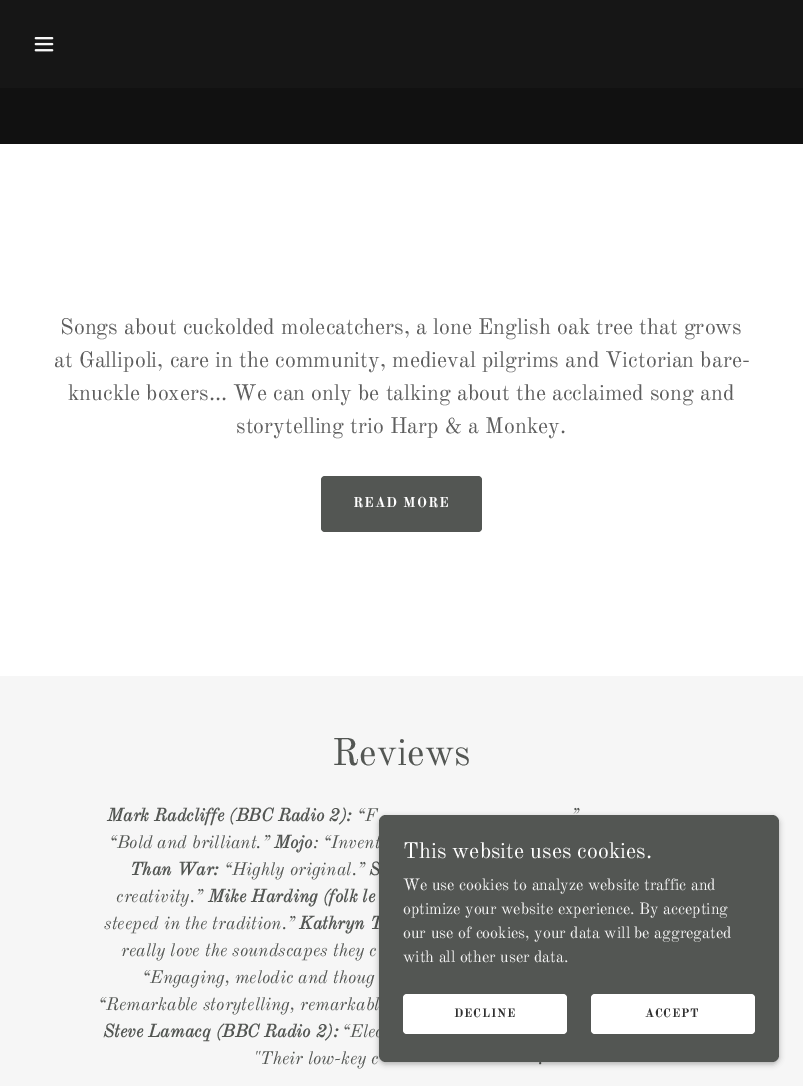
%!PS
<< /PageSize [803 1086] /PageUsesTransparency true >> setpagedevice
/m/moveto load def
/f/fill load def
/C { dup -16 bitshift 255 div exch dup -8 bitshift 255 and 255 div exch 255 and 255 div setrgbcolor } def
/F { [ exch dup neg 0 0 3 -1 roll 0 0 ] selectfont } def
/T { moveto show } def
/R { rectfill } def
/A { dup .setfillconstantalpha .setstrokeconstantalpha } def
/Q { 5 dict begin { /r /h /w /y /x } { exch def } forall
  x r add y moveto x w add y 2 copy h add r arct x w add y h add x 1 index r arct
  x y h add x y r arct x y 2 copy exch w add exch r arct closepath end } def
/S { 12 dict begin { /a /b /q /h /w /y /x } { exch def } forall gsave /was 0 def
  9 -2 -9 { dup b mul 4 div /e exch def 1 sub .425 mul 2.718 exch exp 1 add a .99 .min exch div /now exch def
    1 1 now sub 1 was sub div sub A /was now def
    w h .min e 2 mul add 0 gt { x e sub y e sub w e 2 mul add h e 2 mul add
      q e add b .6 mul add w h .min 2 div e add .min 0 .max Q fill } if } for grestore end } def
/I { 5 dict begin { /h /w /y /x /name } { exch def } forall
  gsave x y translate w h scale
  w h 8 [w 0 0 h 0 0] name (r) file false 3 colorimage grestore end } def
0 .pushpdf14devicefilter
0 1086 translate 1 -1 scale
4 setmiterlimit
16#FFFFFF C
0 0 803 1086 R
16#111111 C
0 88 803 56 R
16#161616 C
0 0 803 88 R
(1.rgb) 34 37 20 15 I
/OldStandardTT-Regular 22 F
16#5E5E5E C
(Songs about cuckolded molecatchers, a lone English oak tree that grows) 60 334 T
(at Gallipoli, care in the community, medieval pilgrims and Victorian bare-) 54 367 T
(knuckle boxers... We can only be talking about the acclaimed song and) 68 400 T
(storytelling trio Harp & a Monkey.) 236 433 T
16#535653 C
321 476 161 56 4 Q f
/OldStandardTT-Bold 14 F
16#FFFFFF C
353 507 m 1 0 (READ MORE) ashow
16#F6F6F6 C
0 676 803 410 R
/OldStandardTT-Regular 38 F
16#535653 C
(Reviews) 332 765 T
/OldStandardTT-BoldItalic 18 F
(Mark Radcliffe \(BBC Radio 2\):) 107 821 T
/OldStandardTT-Italic 18 F
(“F) 357 821 T
(”) 571 821 T
(“Bold and brilliant.”) 109 848 T
/OldStandardTT-BoldItalic 18 F
(Mojo) 274 848 T
/OldStandardTT-Italic 18 F
(: “Invent) 313 848 T
/OldStandardTT-BoldItalic 18 F
(Than War:) 130 875 T
/OldStandardTT-Italic 18 F
(“Highly original.”) 224 875 T
/OldStandardTT-BoldItalic 18 F
(S) 369 875 T
/OldStandardTT-Italic 18 F
(creativity.”) 116 902 T
/OldStandardTT-BoldItalic 18 F
(Mike Harding \(folk le) 208 902 T
/OldStandardTT-Italic 18 F
(steeped in the tradition.”) 104 929 T
/OldStandardTT-BoldItalic 18 F
(Kathryn T) 299 929 T
/OldStandardTT-Italic 18 F
(really love the soundscapes they c) 121 956 T
(“Engaging, melodic and thoug) 142 983 T
(“Remarkable storytelling, remarkabl) 98 1010 T
/OldStandardTT-BoldItalic 18 F
(Steve Lamacq \(BBC Radio 2\):) 103 1037 T
/OldStandardTT-Italic 18 F
(“Elec) 342 1037 T
("Their low-key c) 253 1064 T
(.) 538 1064 T
16#000000 C
379 817 400 247 7 3 .3 S
16#535653 C
379 815 400 247 7 Q f
/OldStandardTT-Regular 22 F
16#FFFFFF C
(This website uses cookies.) 403 858 T
/OldStandardTT-Regular 16 F
16#F4F4F4 C
(We use cookies to analyze website traffic and) 403 890 T
(optimize your website experience. By accepting) 403 914 T
(our use of cookies, your data will be aggregated) 403 938 T
(with all other user data.) 403 962 T
16#FFFFFF C
403 994 164 40 4 Q f
/OldStandardTT-Bold 12 F
16#303030 C
454 1017 m .75 0 (DECLINE) ashow
16#FFFFFF C
591 994 164 40 4 Q f
16#303030 C
645 1017 m .75 0 (ACCEPT) ashow
.poppdf14devicefilter showpage
